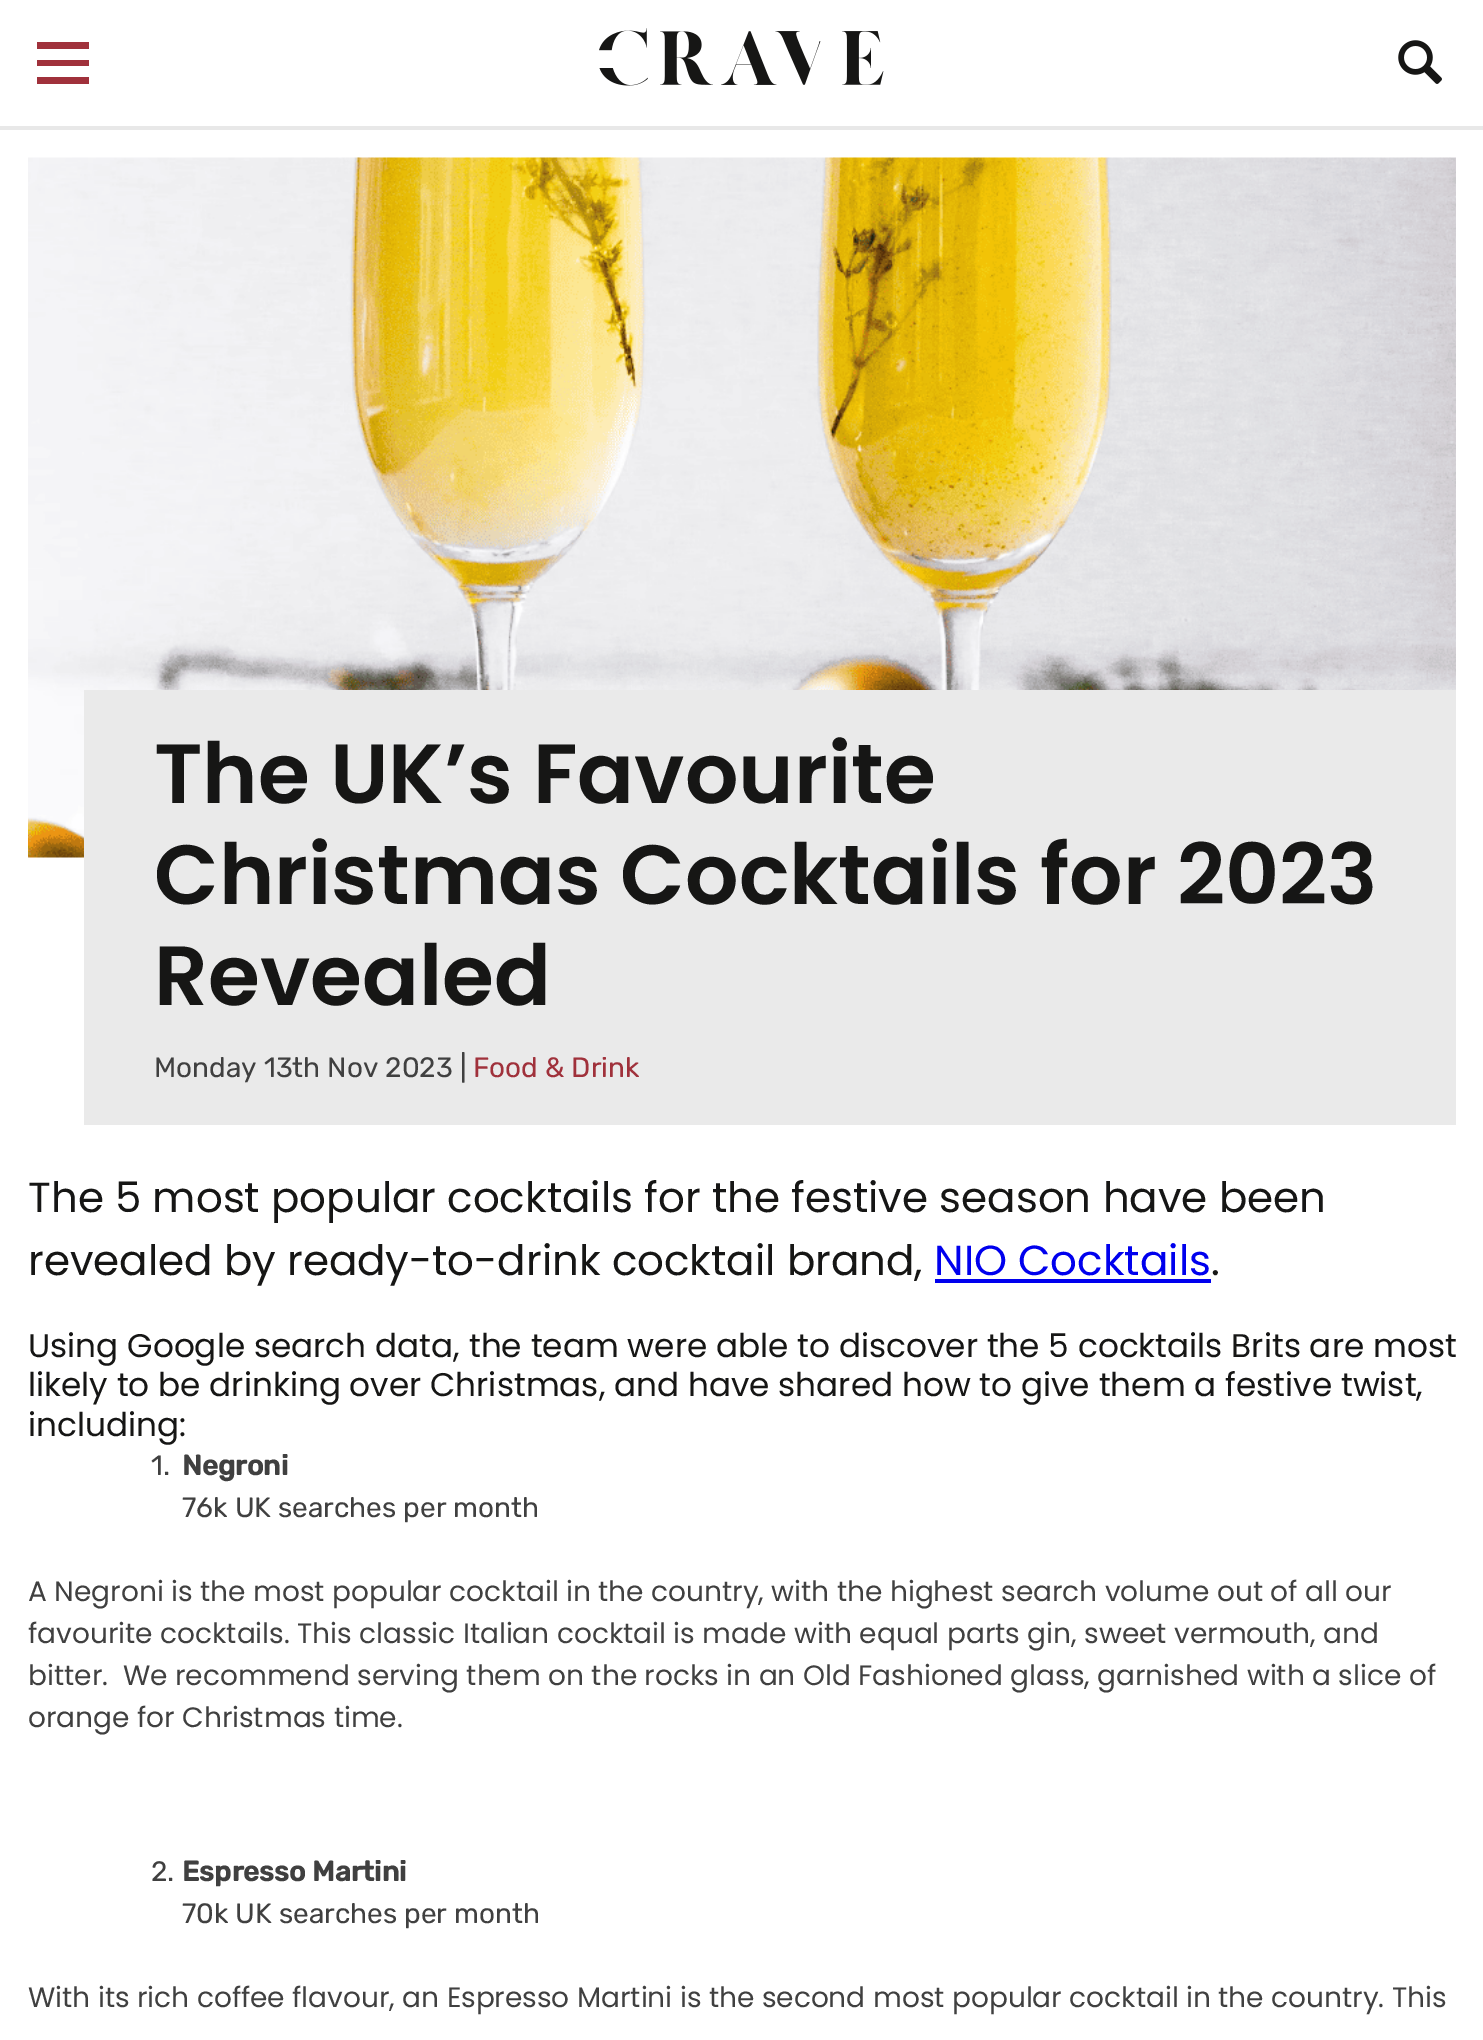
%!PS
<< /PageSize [1483 2040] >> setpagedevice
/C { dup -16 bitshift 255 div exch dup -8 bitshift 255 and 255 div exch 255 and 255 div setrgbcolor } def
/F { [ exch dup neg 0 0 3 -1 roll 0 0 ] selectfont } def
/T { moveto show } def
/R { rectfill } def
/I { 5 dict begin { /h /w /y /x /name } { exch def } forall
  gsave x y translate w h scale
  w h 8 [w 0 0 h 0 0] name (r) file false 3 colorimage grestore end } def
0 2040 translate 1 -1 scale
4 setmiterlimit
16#FFFFFF C
0 0 1483 2040 R
(1.rgb) 599 28 285 58 I
(2.rgb) 1398 40 44 44 I
16#E8E8E8 C
0 126 1483 4 R
16#A0313B C
37 42 52 7 R
37 60 52 6 R
37 77 52 7 R
(3.rgb) 28 157 1428 701 I
16#EAEAEA C
84 690 1372 435 R
/Poppins-SemiBold 84 F
16#161615 C
(The UK’s Favourite) 154 803 T
(Christmas Cocktails for 2023) 154 904 T
(Revealed) 154 1005 T
/Rubik-Regular 28 F
16#404040 C
(Monday 13th Nov 2023 |) 154 1077 T
16#A0313B C
(Food & Drink) 473 1077 T
/Poppins-Regular 42 F
16#161615 C
(The 5 most popular cocktails for the festive season have been) 28 1212 T
(revealed by ready-to-drink cocktail brand,) 28 1275 T
16#0000EE C
(NIO Cocktails) 934 1275 T
935 1279 276 4 R
16#161615 C
(.) 1211 1275 T
/Poppins-Regular 32.75 F
(Using Google search data, the team were able to discover the 5 cocktails Brits are most) 28 1357 T
(likely to be drinking over Christmas, and have shared how to give them a festive twist,) 28 1396 T
(including:) 28 1436 T
/Rubik-Regular 28 F
16#404040 C
(1.) 151 1475 T
/Rubik-Bold 28 F
(Negroni) 182 1475 T
/Rubik-Regular 28 F
(76k UK searches per month) 182 1517 T
/Poppins-Regular 28 F
(A Negroni is the most popular cocktail in the country, with the highest search volume out of all our) 28 1601 T
(favourite cocktails. This classic Italian cocktail is made with equal parts gin, sweet vermouth, and) 28 1643 T
(bitter.  We recommend serving them on the rocks in an Old Fashioned glass, garnished with a slice of) 28 1685 T
(orange for Christmas time.) 28 1727 T
/Rubik-Regular 28 F
(2.) 151 1881 T
/Rubik-Bold 28 F
(Espresso Martini) 182 1881 T
/Rubik-Regular 28 F
(70k UK searches per month) 182 1923 T
/Poppins-Regular 28 F
(With its rich coffee flavour, an Espresso Martini is the second most popular cocktail in the country. This) 28 2007 T
showpage
